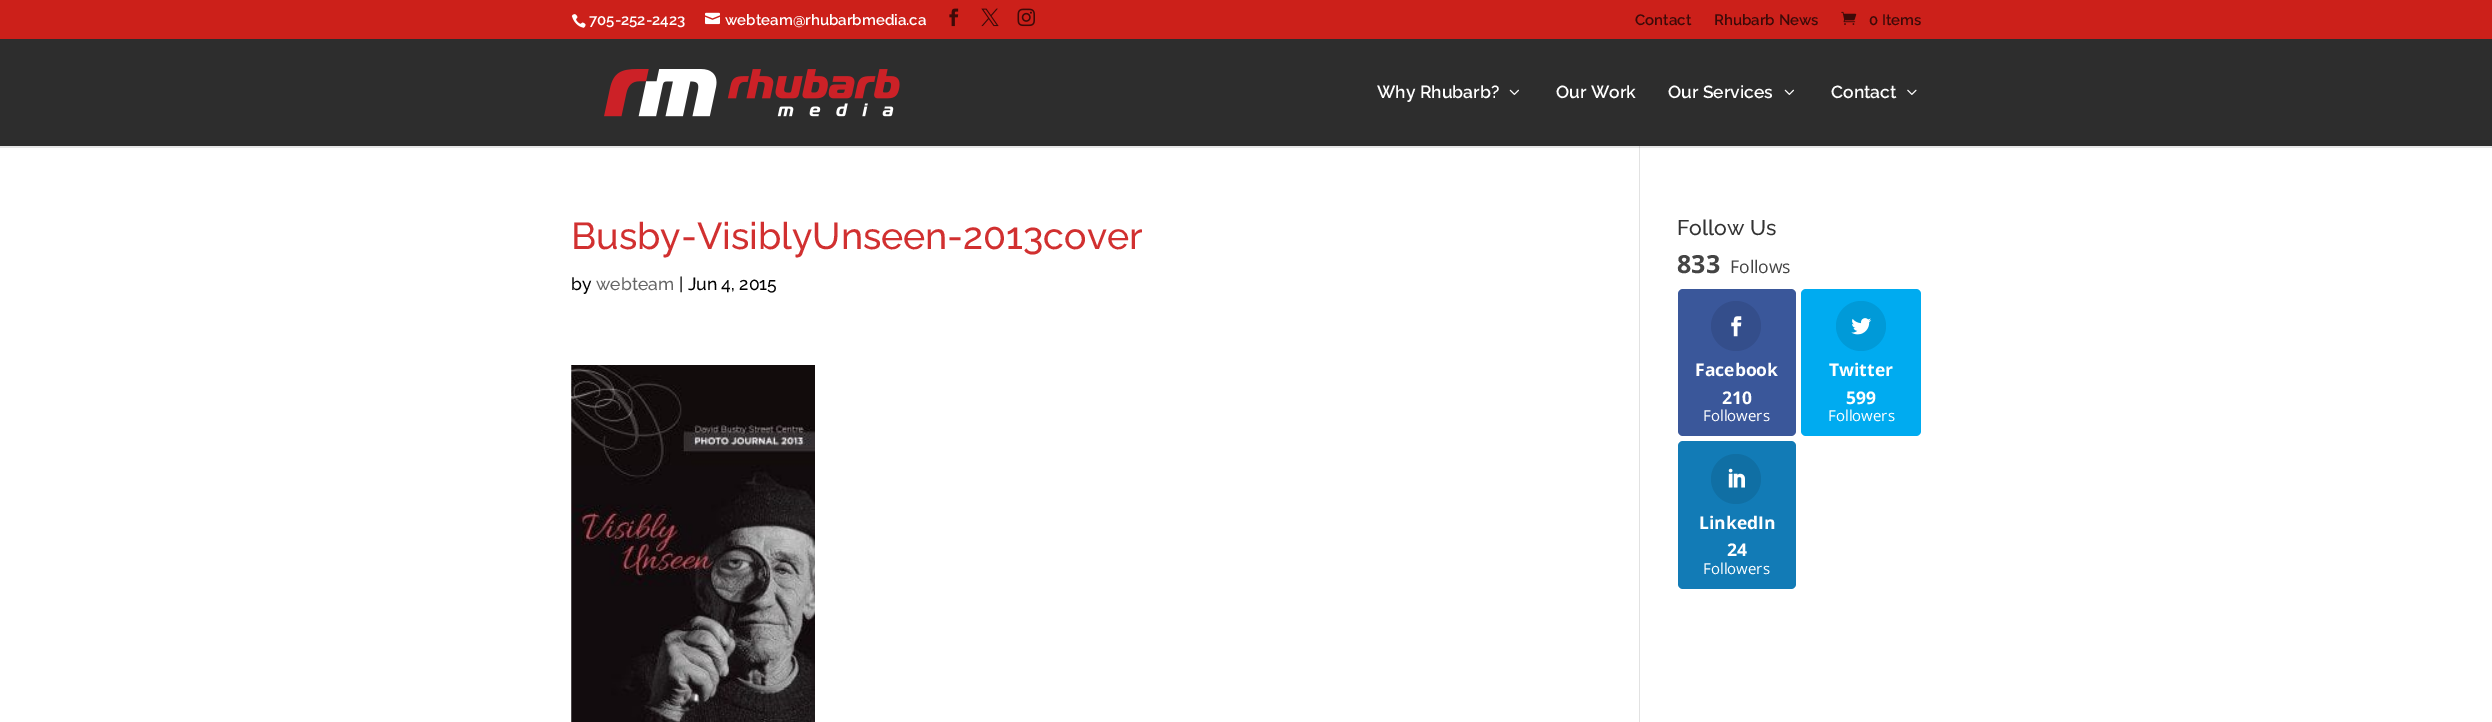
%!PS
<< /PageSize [2492 722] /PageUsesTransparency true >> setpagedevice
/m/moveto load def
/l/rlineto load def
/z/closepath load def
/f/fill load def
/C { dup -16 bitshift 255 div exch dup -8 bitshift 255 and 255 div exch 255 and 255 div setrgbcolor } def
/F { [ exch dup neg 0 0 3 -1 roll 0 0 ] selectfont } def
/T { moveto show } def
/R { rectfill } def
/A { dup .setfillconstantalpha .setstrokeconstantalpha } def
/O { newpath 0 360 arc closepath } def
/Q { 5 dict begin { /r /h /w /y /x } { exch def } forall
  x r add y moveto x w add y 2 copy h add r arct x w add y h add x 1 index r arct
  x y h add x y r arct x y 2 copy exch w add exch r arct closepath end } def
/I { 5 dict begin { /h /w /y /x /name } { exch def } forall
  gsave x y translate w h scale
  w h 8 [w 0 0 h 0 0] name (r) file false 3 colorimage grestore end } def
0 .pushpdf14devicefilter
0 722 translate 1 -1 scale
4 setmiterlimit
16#FFFFFF C
0 0 2492 722 R
16#CC201A C
0 0 2492 39 R
(1.rgb) 571 14 15 14 I
/Raleway-SemiBold 15 F
16#FFFFFF C
(705-252-2423) 589 25 T
(2.rgb) 705 12 15 13 I
(webteam@rhubarbmedia.ca) 725 25 T
(3.rgb) 949 8 10 19 I
(4.rgb) 981 8 18 19 I
(5.rgb) 1017 8 18 19 I
16#3D0A08 C
(Contact) 1635 25 T
(Rhubarb News) 1714 25 T
(6.rgb) 1841 11 16 14 I
(0 Items) 1869 25 T
16#E2E2E2 C
1639 145 1 577 R
0.1 A
16#000000 C
0 146 m 0 2 l 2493 0 l 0 -108 l -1 0 l 0 106 l z f
1 A
16#2D2D2D C
0 39 2492 107 R
(7.rgb) 604 69 296 48 I
/Raleway-SemiBold 17.5 F
16#FFFFFF C
(Why Rhubarb?) 1377 98 T
(8.rgb) 1509 89 10 6 I
(Our Work) 1556 98 T
(Our Services) 1668 98 T
(8.rgb) 1784 89 10 6 I
(Contact) 1831 98 T
(9.rgb) 1907 89 10 6 I
/Raleway-Medium 37.5 F
16#D13030 C
(Busby-VisiblyUnseen-2013cover) 571 249 T
/Raleway-Medium 17.5 F
16#000000 C
(by) 571 290 T
16#666666 C
(webteam) 596 290 T
16#000000 C
(| Jun 4, 2015) 679 290 T
(10.rgb) 571 365 244 357 I
/Raleway-Medium 21.25 F
16#333333 C
(Follow Us) 1677 235 T
/OpenSans-Bold 25 F
16#444444 C
(833) 1677 273 T
/OpenSans-Regular 17.5 F
(Follows) 1730 273 T
16#3A579A C
1678 289 118 147 5 Q f
16#344E8B C
1736 326 25 O f
(11.rgb) 1731 316 11 21 I
/OpenSans-Bold 17.5 F
16#FFFFFF C
(Facebook) 1695 376 T
(210) 1722 404 T
/OpenSans-Regular 15 F
(Followers) 1703 421 T
16#00ABF0 C
1801 289 120 147 5 Q f
16#009AD8 C
1861 326 25 O f
(12.rgb) 1851 318 21 17 I
/OpenSans-Bold 17.5 F
16#FFFFFF C
(Twitter) 1829 376 T
(599) 1846 404 T
/OpenSans-Regular 15 F
(Followers) 1828 421 T
16#127BB6 C
1678 441 118 148 5 Q f
16#106FA4 C
1736 479 25 O f
(13.rgb) 1728 468 17 20 I
/OpenSans-Bold 17.5 F
16#FFFFFF C
(LinkedIn) 1699 529 T
(24) 1727 556 T
/OpenSans-Regular 15 F
(Followers) 1703 574 T
.poppdf14devicefilter showpage
